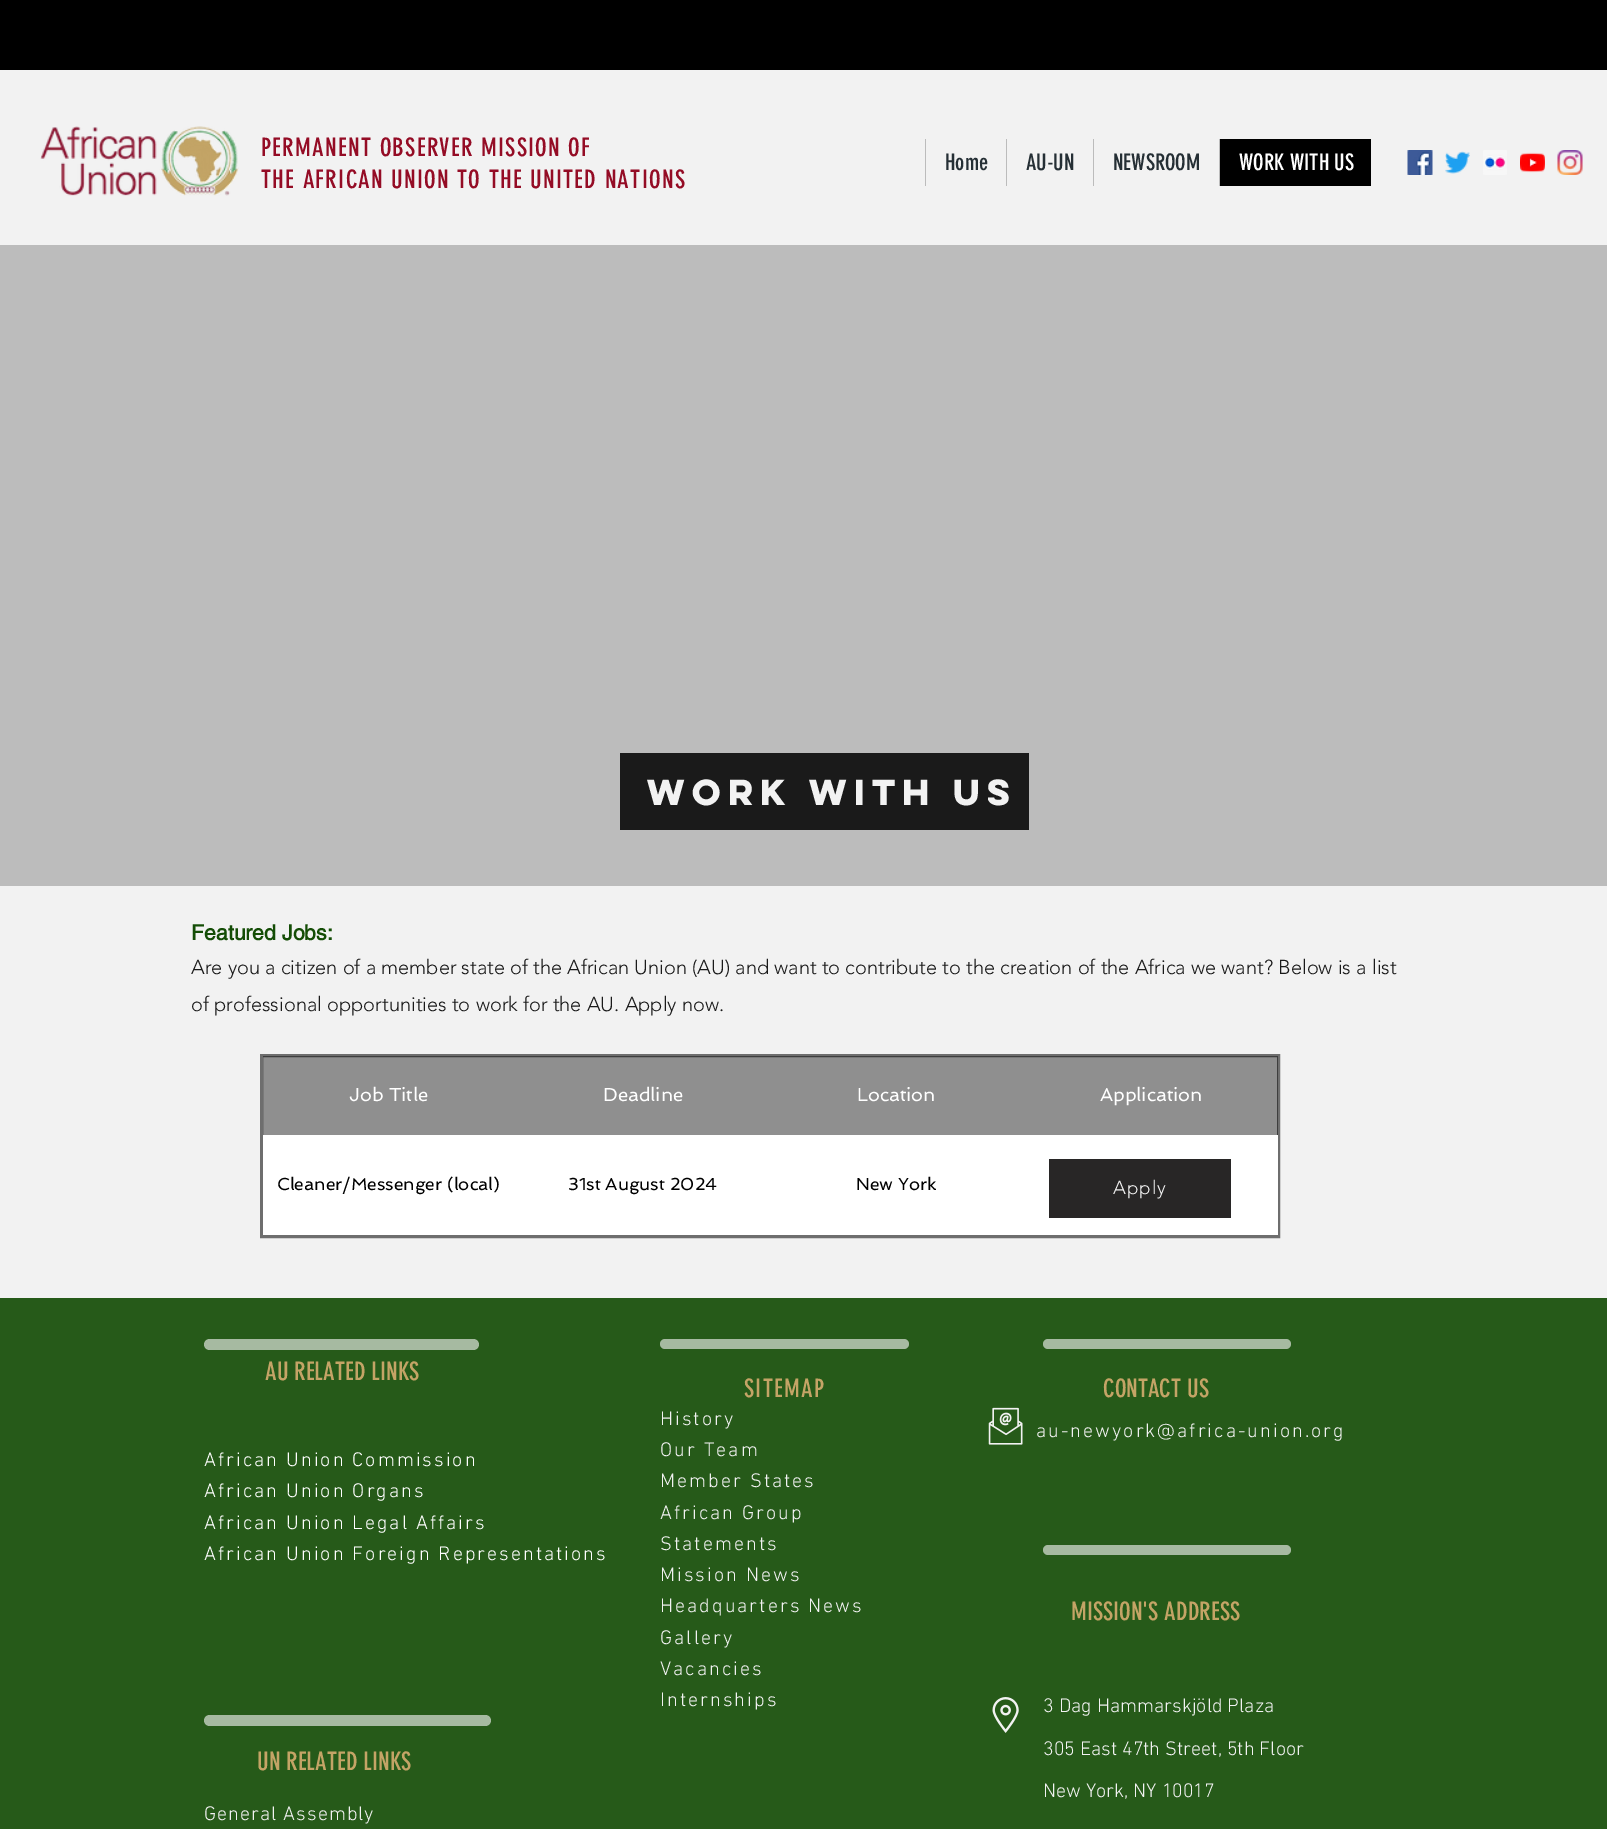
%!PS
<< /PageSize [1607 1829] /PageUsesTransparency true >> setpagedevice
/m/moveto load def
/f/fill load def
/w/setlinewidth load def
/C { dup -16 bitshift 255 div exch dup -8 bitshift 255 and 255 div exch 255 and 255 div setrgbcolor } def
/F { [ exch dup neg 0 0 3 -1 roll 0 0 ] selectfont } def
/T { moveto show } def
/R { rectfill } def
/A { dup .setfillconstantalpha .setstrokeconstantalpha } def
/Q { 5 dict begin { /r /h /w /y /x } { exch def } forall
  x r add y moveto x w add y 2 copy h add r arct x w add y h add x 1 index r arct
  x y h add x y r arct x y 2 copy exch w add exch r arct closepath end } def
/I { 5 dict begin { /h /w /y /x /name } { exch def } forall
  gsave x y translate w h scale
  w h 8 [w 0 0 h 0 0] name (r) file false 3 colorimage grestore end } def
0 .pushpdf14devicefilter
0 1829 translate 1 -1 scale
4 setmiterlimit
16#F2F2F2 C
0 0 1607 1829 R
16#000000 C
0 0 1607 70 R
(1.rgb) 40 126 199 70 I
/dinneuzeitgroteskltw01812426-Regular 25 F
16#940C25 C
261 156 m 1.25 0 (PERMANENT OBSERVER MISSION OF) ashow
261 188 m 1.25 0 (THE AFRICAN UNION TO THE UNITED NATIONS) ashow
16#BCBCBC C
925 139 1 47 R
/dinneuzeitgroteskltw01812426-Regular 22.5 F
16#252F35 C
(Home) 945 170 T
16#BCBCBC C
1006 139 1 47 R
16#252F35 C
(AU-UN) 1026 170 T
16#BCBCBC C
1093 139 1 47 R
16#252F35 C
(NEWSROOM) 1113 170 T
16#000000 C
1220 139 151 47 R
16#BCBCBC C
1219 139 1 47 R
16#FFFFFF C
(WORK WITH US) 1239 170 T
(2.rgb) 1407 150 26 25 I
(3.rgb) 1445 151 25 23 I
(4.rgb) 1483 150 24 25 I
(5.rgb) 1520 152 25 21 I
(6.rgb) 1557 150 26 25 I
16#BCBCBC C
0 245 1607 641 R
16#1A1A1A C
620 753 409 77 R
/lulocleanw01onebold-Bold 32.5 F
16#F2F2F2 C
(WORK WITH US) 647 805 T
/helvetica-Bold 21.25 F
16#144D06 C
(Featured Jobs:) 191 940 T
/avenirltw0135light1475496-Light 20 F
16#1A1A1A C
(Are you a citizen of a member state of the African Union \(AU\) and want to contribute to the creation of the Africa we want? Below is a list) 191 974 T
(of professional opportunities to work for the AU. Apply now.) 191 1011 T
16#FFFFFF C
263 1057 1014 78 R
16#6E6E6E C
3 w
261.5 1055.5 1017 181 rectstroke
0.44 A
16#000000 C
263 1056 1015 79 R
/Spinnaker-Regular 18.75 F
1 A
16#FFFFFF C
(Job Title) 349 1101 T
(Deadline) 603 1101 T
(Location) 857 1101 T
(Application) 1100 1101 T
263 1135 1015 100 R
/Spinnaker-Regular 17.5 F
16#000000 C
(Cleaner/Messenger \(local\)) 277 1190 T
(31st August 2024) 568 1190 T
(New York) 856 1190 T
16#282626 C
1049 1159 182 59 R
/avenirltw0135light1475496-Light 18.75 F
16#F2F2F2 C
1113 1194 m 1 0 (Apply) ashow
16#265A19 C
0 1298 1607 531 R
16#A6BAA1 C
660 1339 249 10 5 Q f
1043 1339 248 10 5 Q f
204 1339 275 11 5.5 Q f
/dinneuzeitgroteskltw01812426-Regular 25 F
16#C4A466 C
(AU RELATED LINKS) 265 1380 T
744 1397 m 1.25 0 (SITEMAP) ashow
(CONTACT US) 1103 1397 T
/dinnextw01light-Light 20 F
16#F2F2F2 C
660 1425 m 2 0 (History) ashow
660 1456 m 2 0 (Our Team) ashow
660 1487 m 2 0 (Member States) ashow
660 1519 m 2 0 (African Group) ashow
660 1550 m 2 0 (Statements) ashow
660 1581 m 2 0 (Mission News) ashow
660 1612 m 2 0 (Headquarters News) ashow
660 1644 m 2 0 (Gallery) ashow
660 1675 m 2 0 (Vacancies) ashow
660 1706 m 2 0 (Internships) ashow
(7.rgb) 988 1407 35 38 I
1036 1437 m 2 0 (au-newyork@africa-union.org) ashow
16#FFFFFF C
204 1466 m 2 0 (African Union Commission) ashow
204 1497 m 2 0 (African Union Organs) ashow
204 1529 m 2 0 (African Union Legal Affairs) ashow
204 1560 m 2 0 (African Union Foreign Representations) ashow
16#A6BAA1 C
1043 1545 248 10 5 Q f
/dinneuzeitgroteskltw01812426-Regular 25 F
16#C4A466 C
(MISSION'S ADDRESS) 1071 1620 T
16#A6BAA1 C
204 1715 287 11 5.5 Q f
(8.rgb) 992 1697 27 36 I
/dinnextw01light-Light 20 F
16#F2F2F2 C
(3 Dag Hammarskjöld Plaza) 1043 1712 T
(305 East 47th Street, 5th Floor) 1043 1755 T
(New York, NY 10017) 1043 1797 T
/dinneuzeitgroteskltw01812426-Regular 25 F
16#C4A466 C
(UN RELATED LINKS) 257 1770 T
/dinnextw01light-Light 20 F
16#F2F2F2 C
204 1820 m 1 0 (General Assembly) ashow
.poppdf14devicefilter showpage
